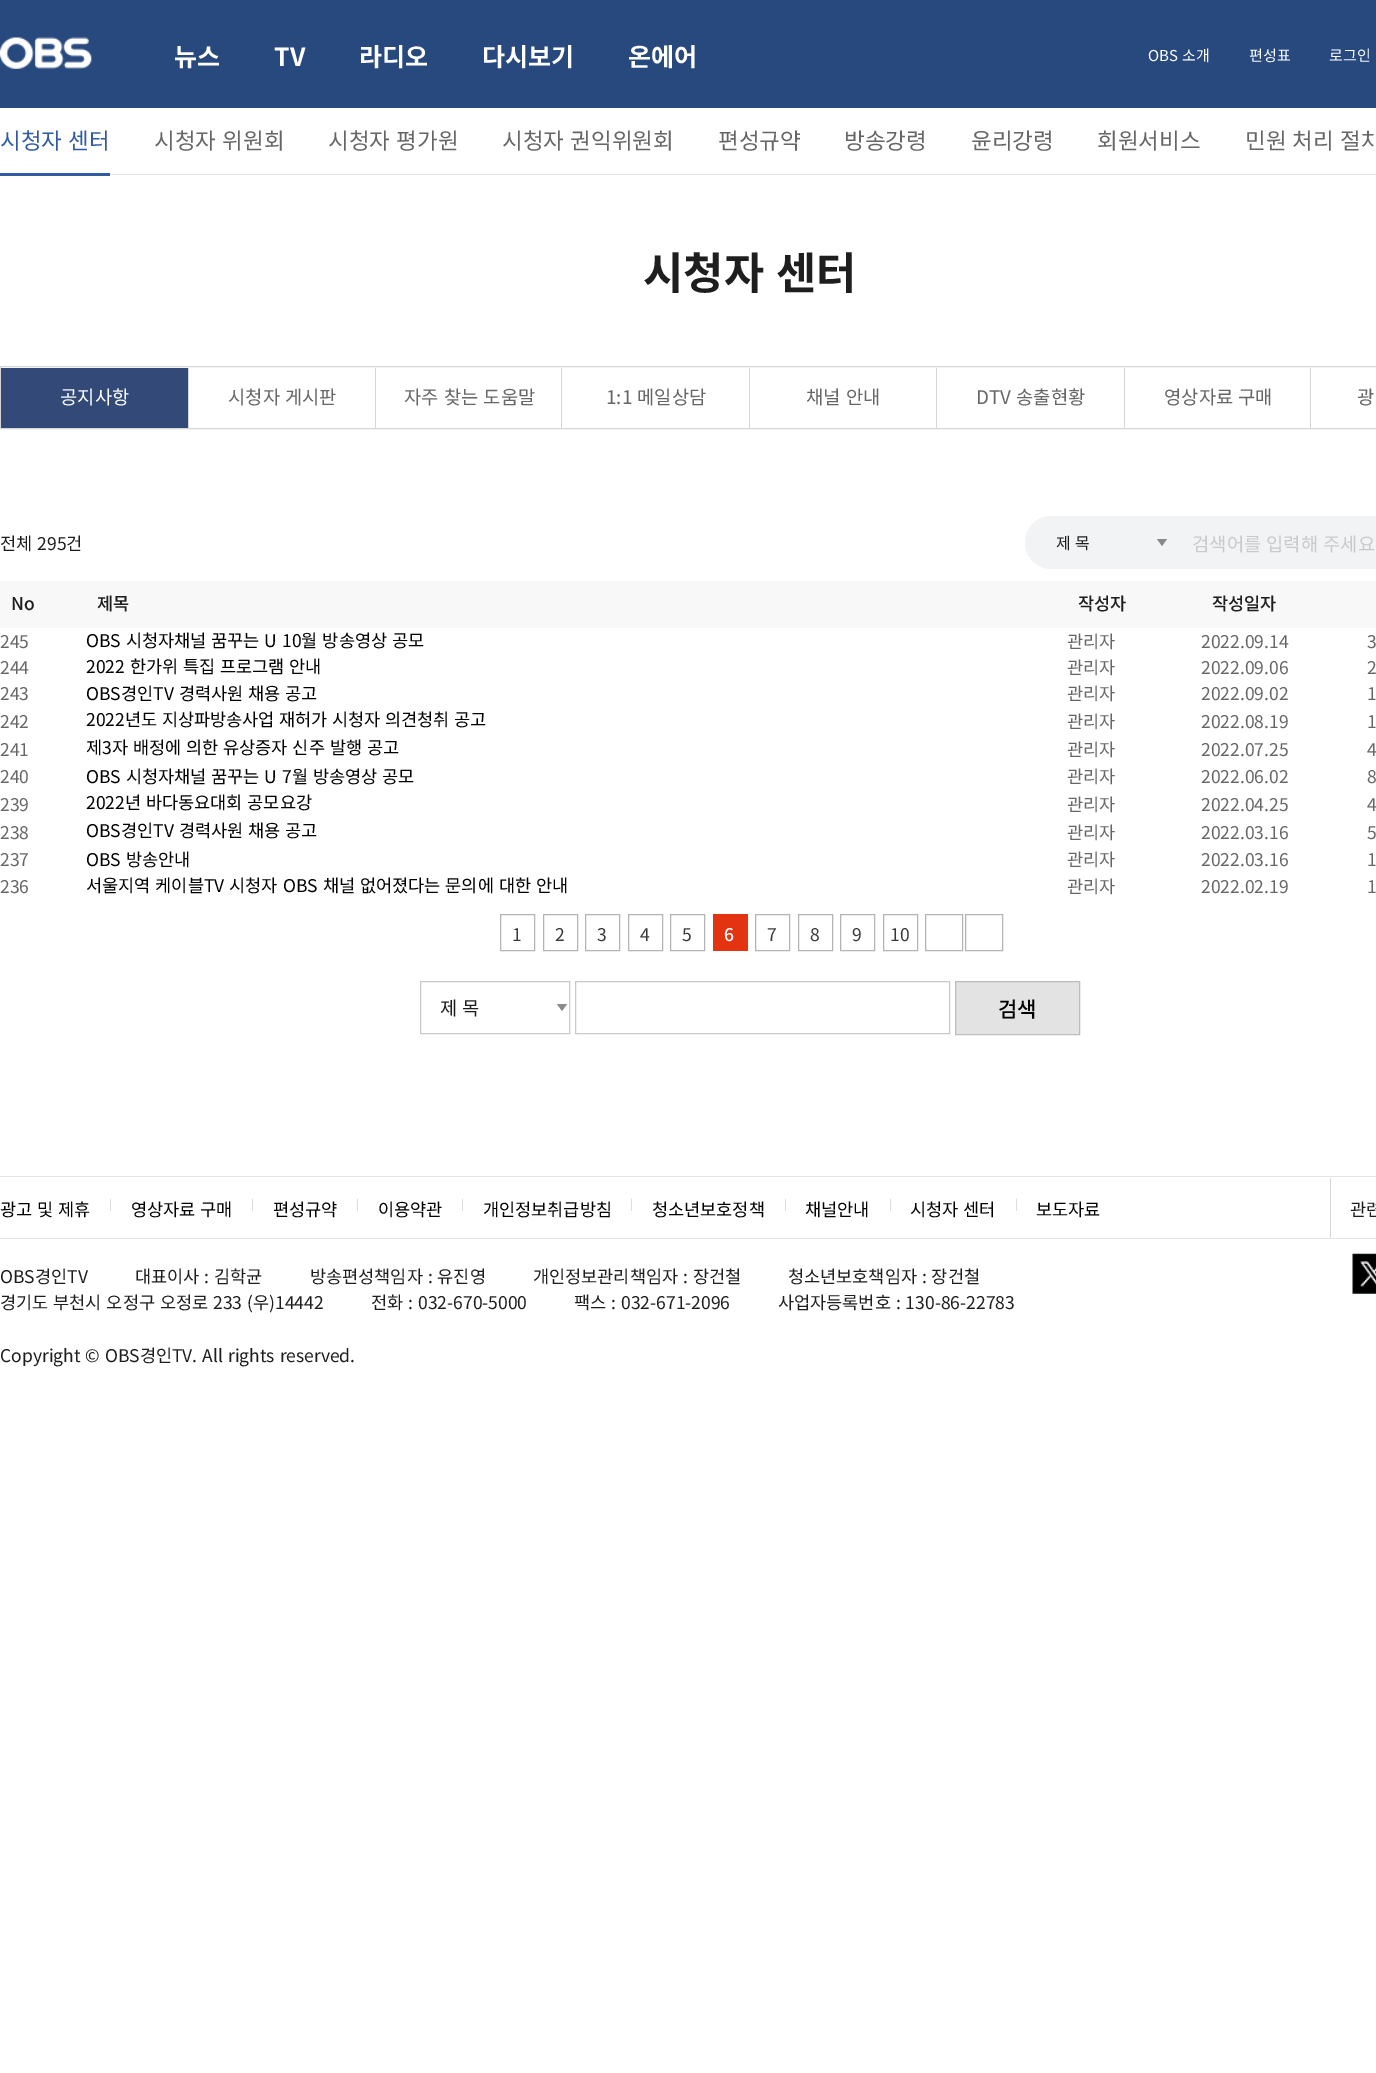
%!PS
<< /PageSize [1376 2073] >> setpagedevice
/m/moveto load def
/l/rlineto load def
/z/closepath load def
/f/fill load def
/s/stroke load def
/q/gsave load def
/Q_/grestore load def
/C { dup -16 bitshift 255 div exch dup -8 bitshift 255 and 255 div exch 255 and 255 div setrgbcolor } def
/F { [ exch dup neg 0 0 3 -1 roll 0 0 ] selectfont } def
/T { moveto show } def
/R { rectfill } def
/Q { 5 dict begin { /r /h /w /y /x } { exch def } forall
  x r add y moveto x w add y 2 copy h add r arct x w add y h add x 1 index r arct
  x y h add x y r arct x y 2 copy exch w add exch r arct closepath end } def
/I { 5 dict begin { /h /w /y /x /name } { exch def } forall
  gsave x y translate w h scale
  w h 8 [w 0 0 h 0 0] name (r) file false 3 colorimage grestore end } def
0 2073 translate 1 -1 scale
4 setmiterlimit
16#FFFFFF C
0 0 1376 2073 R
16#28497E C
0 0 1376 108 R
(1.rgb) 0 37 92 32 I
/NotoSansKR-Bold 25 F
16#FFFFFF C
(뉴스) 174 66 T
(TV) 274 66 T
(라디오) 359 66 T
(다시보기) 482 66 T
(온에어) 628 66 T
/NotoSansKR-Regular 15 F
1148 61 m 1 0 32 (OBS 소개) widthshow
(편성표) 1249 61 T
(로그인) 1329 61 T
16#E4E4E4 C
110 174 1266 1 R
/NotoSansKR-Regular 22.5 F
16#305BA0 C
0 149 m 1 0 32 (시청자 센터) widthshow
0 173 110 3 R
16#666666 C
154 149 m 1 0 32 (시청자 위원회) widthshow
328 149 m 1 0 32 (시청자 평가원) widthshow
502 149 m 1 0 32 (시청자 권익위원회) widthshow
(편성규약) 718 149 T
(방송강령) 844 149 T
(윤리강령) 971 149 T
(회원서비스) 1097 149 T
1245 149 m 1 0 32 (민원 처리 절차) widthshow
/NotoSansKR-Bold 43.75 F
16#1E1E1E C
643 289 m 2 0 32 (시청자 센터) widthshow
16#D6D6D6 C
.5 366.5 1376 62 rectstroke
16#334A79 C
1 368 187 60 R
/NotoSansKR-Regular 18.75 F
16#FFFFFF C
(공지사항) 60 404 T
16#D6D6D6 C
188 368 1 60 R
16#666666 C
228 404 m 1 0 32 (시청자 게시판) widthshow
16#D6D6D6 C
375 368 1 60 R
16#666666 C
404 404 m 1 0 32 (자주 찾는 도움말) widthshow
16#D6D6D6 C
561 368 1 60 R
16#666666 C
606 404 m 1 0 32 (1:1 메일상담) widthshow
16#D6D6D6 C
749 368 1 60 R
16#666666 C
806 404 m 1 0 32 (채널 안내) widthshow
16#D6D6D6 C
936 368 1 60 R
16#666666 C
976 404 m 1 0 32 (DTV 송출현황) widthshow
16#D6D6D6 C
1124 368 1 60 R
16#666666 C
1164 404 m 1 0 32 (영상자료 구매) widthshow
16#D6D6D6 C
1310 368 1 60 R
16#666666 C
1357 404 m 1 0 32 (광) widthshow
/NotoSansKR-Regular 17.5 F
16#1E1E1E C
0 550 m 1 0 32 (전체 295건) widthshow
16#F1F3F5 C
1025 516 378 53 26.5 Q f
16#8A8A8A C
1157 539 m 10 0 l -5 7 l z f
/NotoSansKR-Regular 16 F
16#1E1E1E C
1056 549 m 1 0 32 (제 목) widthshow
/NotoSansKR-Regular 18.75 F
16#CACACA C
1192 551 m 1 0 32 (검색어를 입력해 주세요) widthshow
16#F8F8F8 C
0 581 1376 47 R
/NotoSansKR-Medium 17.5 F
16#1E1E1E C
(No) 11 610 T
(제목) 97 610 T
(작성자) 1078 610 T
(작성일자) 1212 610 T
/NotoSansKR-Regular 17.5 F
16#666666 C
(245) 0 648 T
16#000000 C
86 647 m 1 0 32 (OBS 시청자채널 꿈꾸는 U 10월 방송영상 공모) widthshow
16#666666 C
(관리자) 1067 648 T
(2022.09.14) 1201 648 T
(3) 1367 648 T
(244) 0 674 T
16#000000 C
86 673 m 1 0 32 (2022 한가위 특집 프로그램 안내) widthshow
16#666666 C
(관리자) 1067 674 T
(2022.09.06) 1201 674 T
(2) 1367 674 T
(243) 0 700 T
16#000000 C
86 700 m 1 0 32 (OBS경인TV 경력사원 채용 공고) widthshow
16#666666 C
(관리자) 1067 700 T
(2022.09.02) 1201 700 T
(1) 1367 700 T
(242) 0 728 T
16#000000 C
86 726 m .75 0 32 (2022년도 지상파방송사업 재허가 시청자 의견청취 공고) widthshow
16#666666 C
(관리자) 1067 728 T
(2022.08.19) 1201 728 T
(1) 1367 728 T
(241) 0 756 T
16#000000 C
86 754 m 1 0 32 (제3자 배정에 의한 유상증자 신주 발행 공고) widthshow
16#666666 C
(관리자) 1067 756 T
(2022.07.25) 1201 756 T
(4) 1367 756 T
(240) 0 783 T
16#000000 C
86 783 m 1 0 32 (OBS 시청자채널 꿈꾸는 U 7월 방송영상 공모) widthshow
16#666666 C
(관리자) 1067 783 T
(2022.06.02) 1201 783 T
(8) 1367 783 T
(239) 0 811 T
16#000000 C
86 809 m 1 0 32 (2022년 바다동요대회 공모요강) widthshow
16#666666 C
(관리자) 1067 811 T
(2022.04.25) 1201 811 T
(4) 1367 811 T
(238) 0 839 T
16#000000 C
86 837 m 1 0 32 (OBS경인TV 경력사원 채용 공고) widthshow
16#666666 C
(관리자) 1067 839 T
(2022.03.16) 1201 839 T
(5) 1367 839 T
(237) 0 866 T
16#000000 C
86 866 m 1 0 32 (OBS 방송안내) widthshow
16#666666 C
(관리자) 1067 866 T
(2022.03.16) 1201 866 T
(1) 1367 866 T
(236) 0 893 T
16#000000 C
86 892 m 1 0 32 (서울지역 케이블TV 시청자) widthshow
283 892 m 1 0 32 (OBS 채널 없어졌다는 문의에 대한 안내) widthshow
16#666666 C
(관리자) 1067 893 T
(2022.02.19) 1201 893 T
(1) 1367 893 T
16#B4B4B4 C
500.5 914.5 34 36 rectstroke
16#383838 C
(1) 512 941 T
16#B4B4B4 C
543.5 914.5 34 36 rectstroke
16#383838 C
(2) 555 941 T
16#B4B4B4 C
585.5 914.5 34 36 rectstroke
16#383838 C
(3) 597 941 T
16#B4B4B4 C
628.5 914.5 34 36 rectstroke
16#383838 C
(4) 640 941 T
16#B4B4B4 C
670.5 914.5 34 36 rectstroke
16#383838 C
(5) 682 941 T
16#E43311 C
713 914 35 37 R
/NotoSansKR-Medium 17.5 F
16#FFFFFF C
(6) 724 941 T
16#B4B4B4 C
755.5 914.5 34 36 rectstroke
/NotoSansKR-Regular 17.5 F
16#383838 C
(7) 767 941 T
16#B4B4B4 C
798.5 914.5 34 36 rectstroke
16#383838 C
(8) 810 941 T
16#B4B4B4 C
840.5 914.5 34 36 rectstroke
16#383838 C
(9) 852 941 T
16#B4B4B4 C
883.5 914.5 34 36 rectstroke
16#383838 C
(10) 890 941 T
16#B4B4B4 C
925.5 914.5 37 36 rectstroke
965.5 914.5 37 36 rectstroke
16#8A8A8A C
557 1004 m 10 0 l -5 7 l z f
16#CACACA C
420.5 981.5 149 52 rectstroke
/NotoSansKR-Regular 18.75 F
16#1E1E1E C
440 1015 m 1 0 32 (제 목) widthshow
16#CACACA C
575.5 981.5 374 52 rectstroke
16#E3E3E3 C
955.5 981.5 m 124 0 l 0 53 l -124 0 l z q f Q_
16#BCBDBF C
s
/NotoSansKR-Medium 21 F
16#000000 C
(검색) 998 1017 T
16#E4E4E4 C
0 1176 1376 1 R
0 1238 1376 1 R
/NotoSansKR-Regular 17.5 F
16#000000 C
0 1216 m 1 0 32 (광고 및 제휴) widthshow
/NotoSansKR-Regular 11 F
16#C0C0C0 C
(|) 109 1208 T
/NotoSansKR-Regular 17.5 F
16#000000 C
131 1216 m 1 0 32 (영상자료 구매) widthshow
/NotoSansKR-Regular 11 F
16#C0C0C0 C
(|) 251 1208 T
/NotoSansKR-Regular 17.5 F
16#000000 C
(편성규약) 273 1216 T
/NotoSansKR-Regular 11 F
16#C0C0C0 C
(|) 356 1208 T
/NotoSansKR-Regular 17.5 F
16#000000 C
(이용약관) 378 1216 T
/NotoSansKR-Regular 11 F
16#C0C0C0 C
(|) 461 1208 T
/NotoSansKR-Regular 17.5 F
16#000000 C
(개인정보취급방침) 483 1216 T
/NotoSansKR-Regular 11 F
16#C0C0C0 C
(|) 630 1208 T
/NotoSansKR-Regular 17.5 F
16#000000 C
(청소년보호정책) 652 1216 T
/NotoSansKR-Regular 11 F
16#C0C0C0 C
(|) 784 1208 T
/NotoSansKR-Regular 17.5 F
16#000000 C
(채널안내) 805 1216 T
/NotoSansKR-Regular 11 F
16#C0C0C0 C
(|) 889 1208 T
/NotoSansKR-Regular 17.5 F
16#000000 C
910 1216 m 1 0 32 (시청자 센터) widthshow
/NotoSansKR-Regular 11 F
16#C0C0C0 C
(|) 1015 1208 T
/NotoSansKR-Regular 17.5 F
16#000000 C
(보도자료) 1036 1216 T
16#D7D7D7 C
1330 1178 1 60 R
16#1E1E1E C
1350 1216 m 1 0 32 (관련) widthshow
(OBS경인TV) 0 1283 T
135 1283 m 1 0 32 (대표이사 : 김학균) widthshow
310 1283 m 1 0 32 (방송편성책임자 : 유진영) widthshow
533 1283 m 1 0 32 (개인정보관리책임자 : 장건철) widthshow
788 1283 m 1 0 32 (청소년보호책임자 : 장건철) widthshow
0 1309 m 1 0 32 (경기도 부천시 오정구 오정로 233 \(우\)14442) widthshow
371 1309 m 1 0 32 (전화 : 032-670-5000) widthshow
574 1309 m 1 0 32 (팩스 : 032-671-2096) widthshow
778 1309 m 1 0 32 (사업자등록번호 : 130-86-22783) widthshow
0 1362 m 1 0 32 (Copyright © OBS경인TV. All rights reserved.) widthshow
(2.rgb) 1352 1253 24 41 I
showpage
